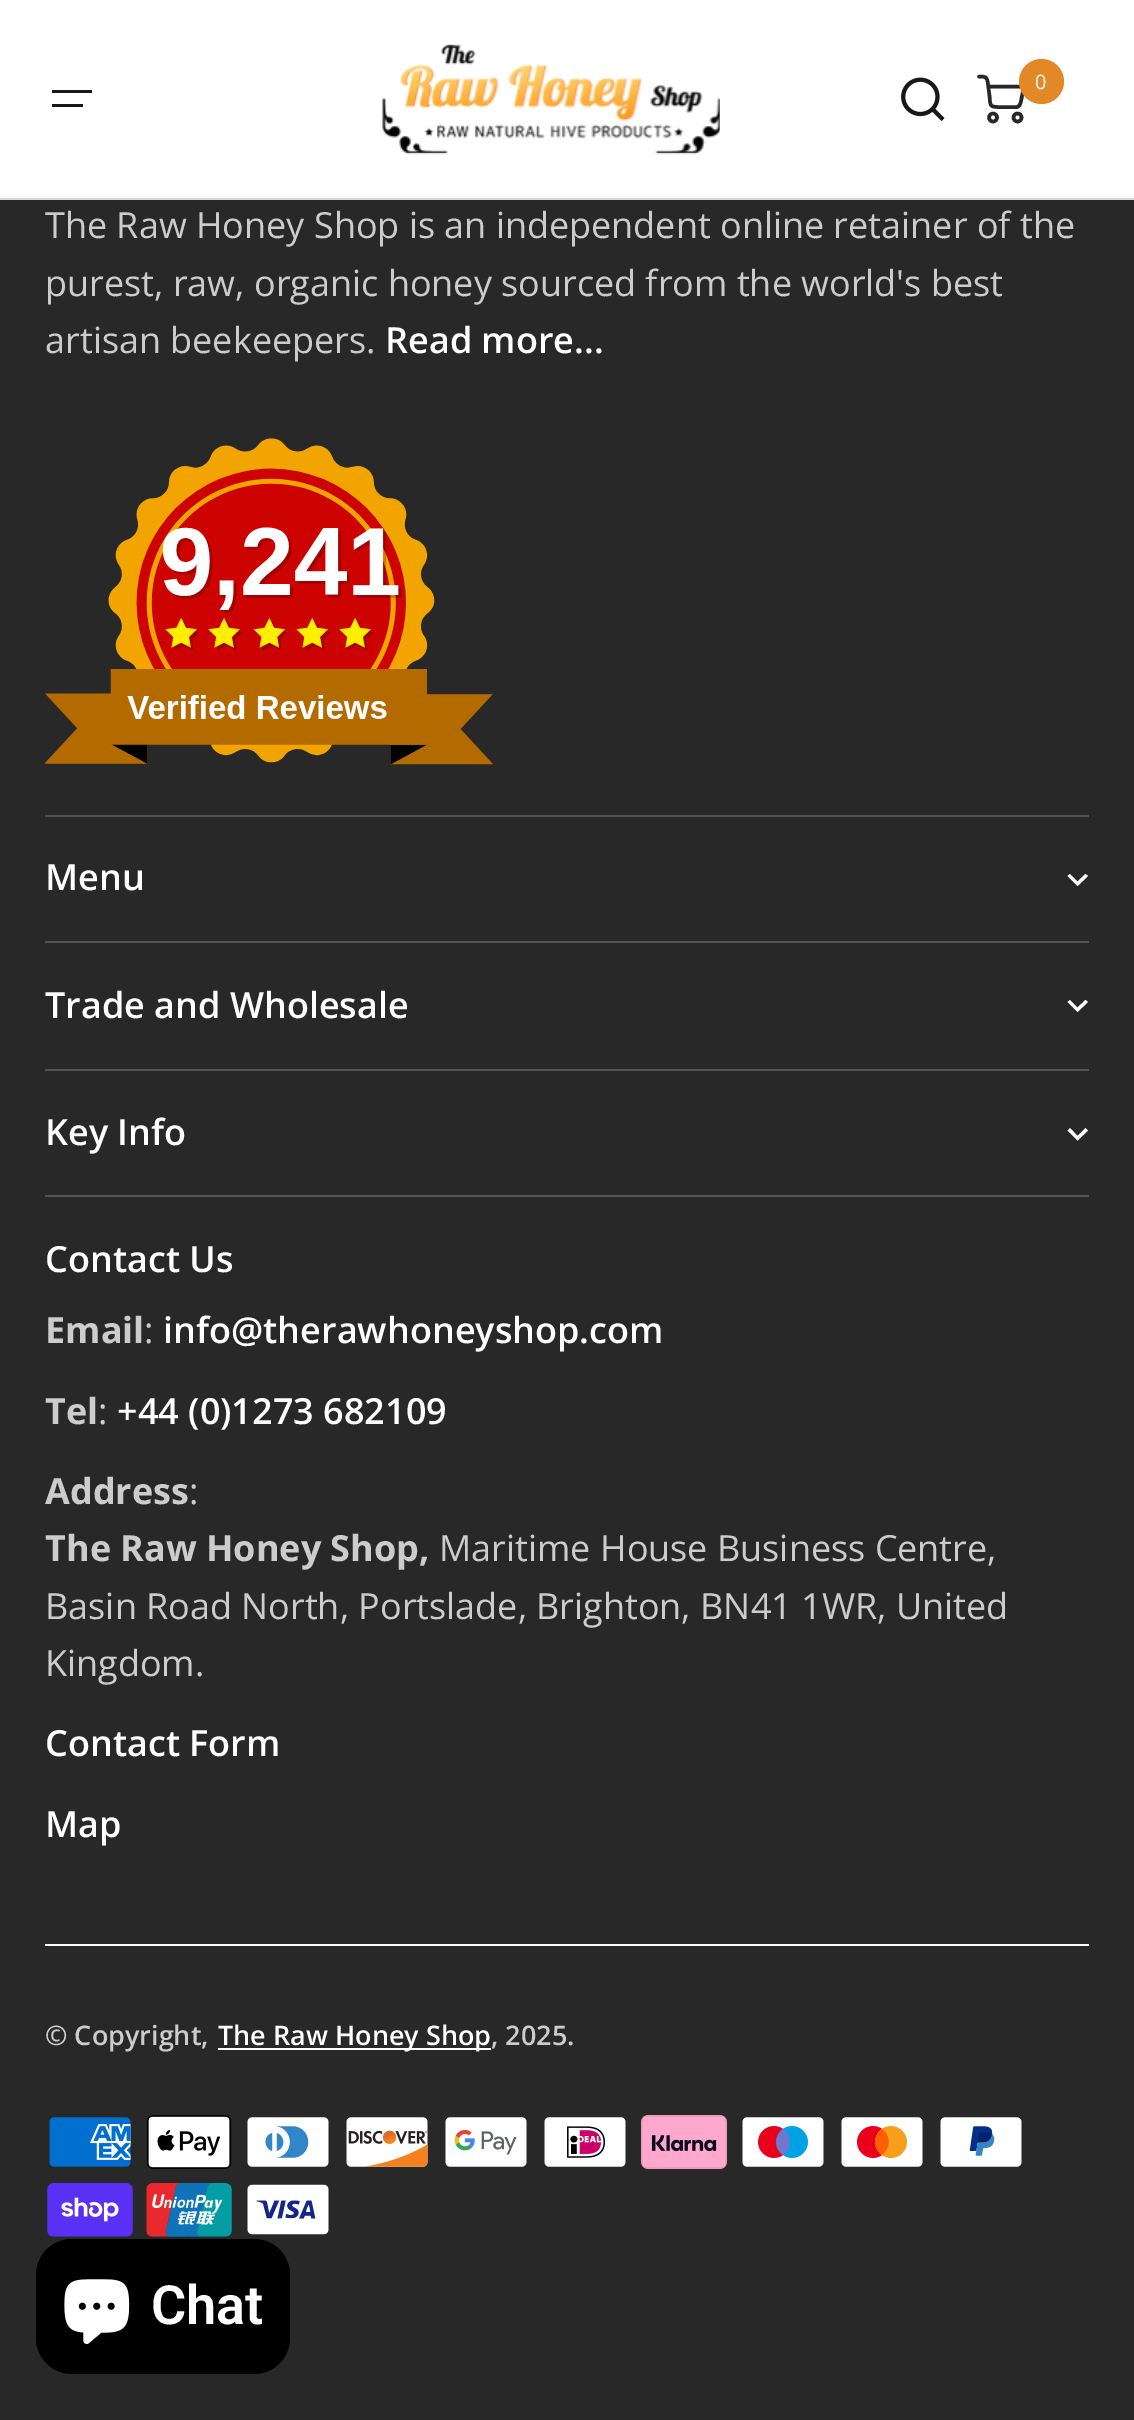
%!PS
<< /PageSize [1134 2420] >> setpagedevice
/m/moveto load def
/l/rlineto load def
/c/rcurveto load def
/z/closepath load def
/f/fill load def
/s/stroke load def
/w/setlinewidth load def
/C { dup -16 bitshift 255 div exch dup -8 bitshift 255 and 255 div exch 255 and 255 div setrgbcolor } def
/F { [ exch dup neg 0 0 3 -1 roll 0 0 ] selectfont } def
/T { moveto show } def
/R { rectfill } def
/O { newpath 0 360 arc closepath } def
/Q { 5 dict begin { /r /h /w /y /x } { exch def } forall
  x r add y moveto x w add y 2 copy h add r arct x w add y h add x 1 index r arct
  x y h add x y r arct x y 2 copy exch w add exch r arct closepath end } def
/I { 5 dict begin { /h /w /y /x /name } { exch def } forall
  gsave x y translate w h scale
  w h 8 [w 0 0 h 0 0] name (r) file false 3 colorimage grestore end } def
0 2420 translate 1 -1 scale
4 setmiterlimit
16#282828 C
0 0 1134 2420 R
16#FFFFFF C
0 0 1134 198 R
(1.rgb) 382 44 338 111 I
(2.rgb) 901 77 44 44 I
16#282828 C
3.5 w
993 117.5 4 O s
1017.5 117.5 4 O s
1 setlinecap
1 setlinejoin
988.5 86.5 m 35.5 0 l -3 14.5 l -1.5 8 -4.5 6 -12 6 c -11 0 l -9 0 -7.5 -2.5 -8.5 -11 c -1.5 -12 l -1 -7.5 -2 -7.5 -9 -7.5 c s
16#E28826 C
1041.5 81.5 22.5 O f
/OpenSans-Regular 20 F
16#FFFFFF C
(0) 1035 89 T
16#181818 C
52 90 40 3 R
52 104 31 3 R
16#D6D6D6 C
0 198 1134 2 R
/OpenSans-Regular 36 F
16#CCCCCC C
(The Raw Honey Shop is an independent online retainer of the) 45 238 T
(purest, raw, organic honey sourced from the world's best) 45 296 T
(artisan beekeepers.) 45 353 T
/OpenSans-SemiBold 36 F
16#FFFFFF C
(Read more...) 385 353 T
(3.rgb) 45 438 448 327 I
16#535353 C
45 815 1044 2 R
45 941 1044 2 R
16#FFFFFF C
(Menu) 45 890 T
1077.5 881.5 m 8 -7.5 l 2.5 2 l -10.5 10 l -10 -10 l 2.5 -2 l z f
16#535353 C
45 1069 1044 2 R
16#FFFFFF C
(Trade and Wholesale) 45 1018 T
1077.5 1007.5 m 8 -7.5 l 2.5 2 l -10.5 10 l -10 -10 l 2.5 -2 l z f
16#535353 C
45 1195 1044 2 R
16#FFFFFF C
(Key Info) 45 1145 T
1077.5 1136 m 8 -8 l 2.5 2.5 l -10.5 10 l -10 -10 l 2.5 -2.5 l z f
(Contact Us) 45 1272 T
/OpenSans-Bold 36 F
16#CCCCCC C
(Email) 45 1343 T
/OpenSans-Regular 36 F
(:) 144 1343 T
/OpenSans-SemiBold 36 F
16#FFFFFF C
(info@therawhoneyshop.com) 163 1343 T
/OpenSans-Bold 36 F
16#CCCCCC C
(Tel) 45 1424 T
/OpenSans-Regular 36 F
(:) 98 1424 T
/OpenSans-SemiBold 36 F
16#FFFFFF C
(+44 \(0\)1273 682109) 117 1424 T
/OpenSans-Bold 36 F
16#CCCCCC C
(Address) 45 1504 T
/OpenSans-Regular 36 F
(:) 189 1504 T
/OpenSans-Bold 36 F
(The Raw Honey Shop,) 45 1561 T
/OpenSans-Regular 36 F
(Maritime House Business Centre,) 439 1561 T
(Basin Road North, Portslade, Brighton, BN41 1WR, United) 45 1619 T
(Kingdom.) 45 1676 T
/OpenSans-SemiBold 36 F
16#FFFFFF C
(Contact Form) 45 1756 T
(Map) 45 1837 T
45 1944 1044 2 R
/OpenSans-SemiBold 27 F
16#CCCCCC C
(© Copyright,) 45 2045 T
16#FFFFFF C
218 2048 273 2 R
(The Raw Honey Shop) 218 2045 T
16#CCCCCC C
(, 2025.) 491 2045 T
(4.rgb) 49 2117 82 50 I
(5.rgb) 146 2115 86 54 I
(6.rgb) 247 2117 82 50 I
(7.rgb) 346 2117 82 50 I
(8.rgb) 445 2117 82 50 I
(9.rgb) 544 2117 82 50 I
(10.rgb) 641 2115 86 54 I
(11.rgb) 742 2117 82 50 I
(12.rgb) 841 2117 82 50 I
(13.rgb) 940 2117 82 50 I
(14.rgb) 47 2183 86 54 I
(15.rgb) 146 2183 86 54 I
(16.rgb) 247 2184 82 51 I
16#000000 C
36 2239 254 135 36 Q f
(17.rgb) 64 2279 66 65 I
/Roboto-SemiBold 54 F
16#FFFFFF C
(Chat) 151 2324 T
showpage
